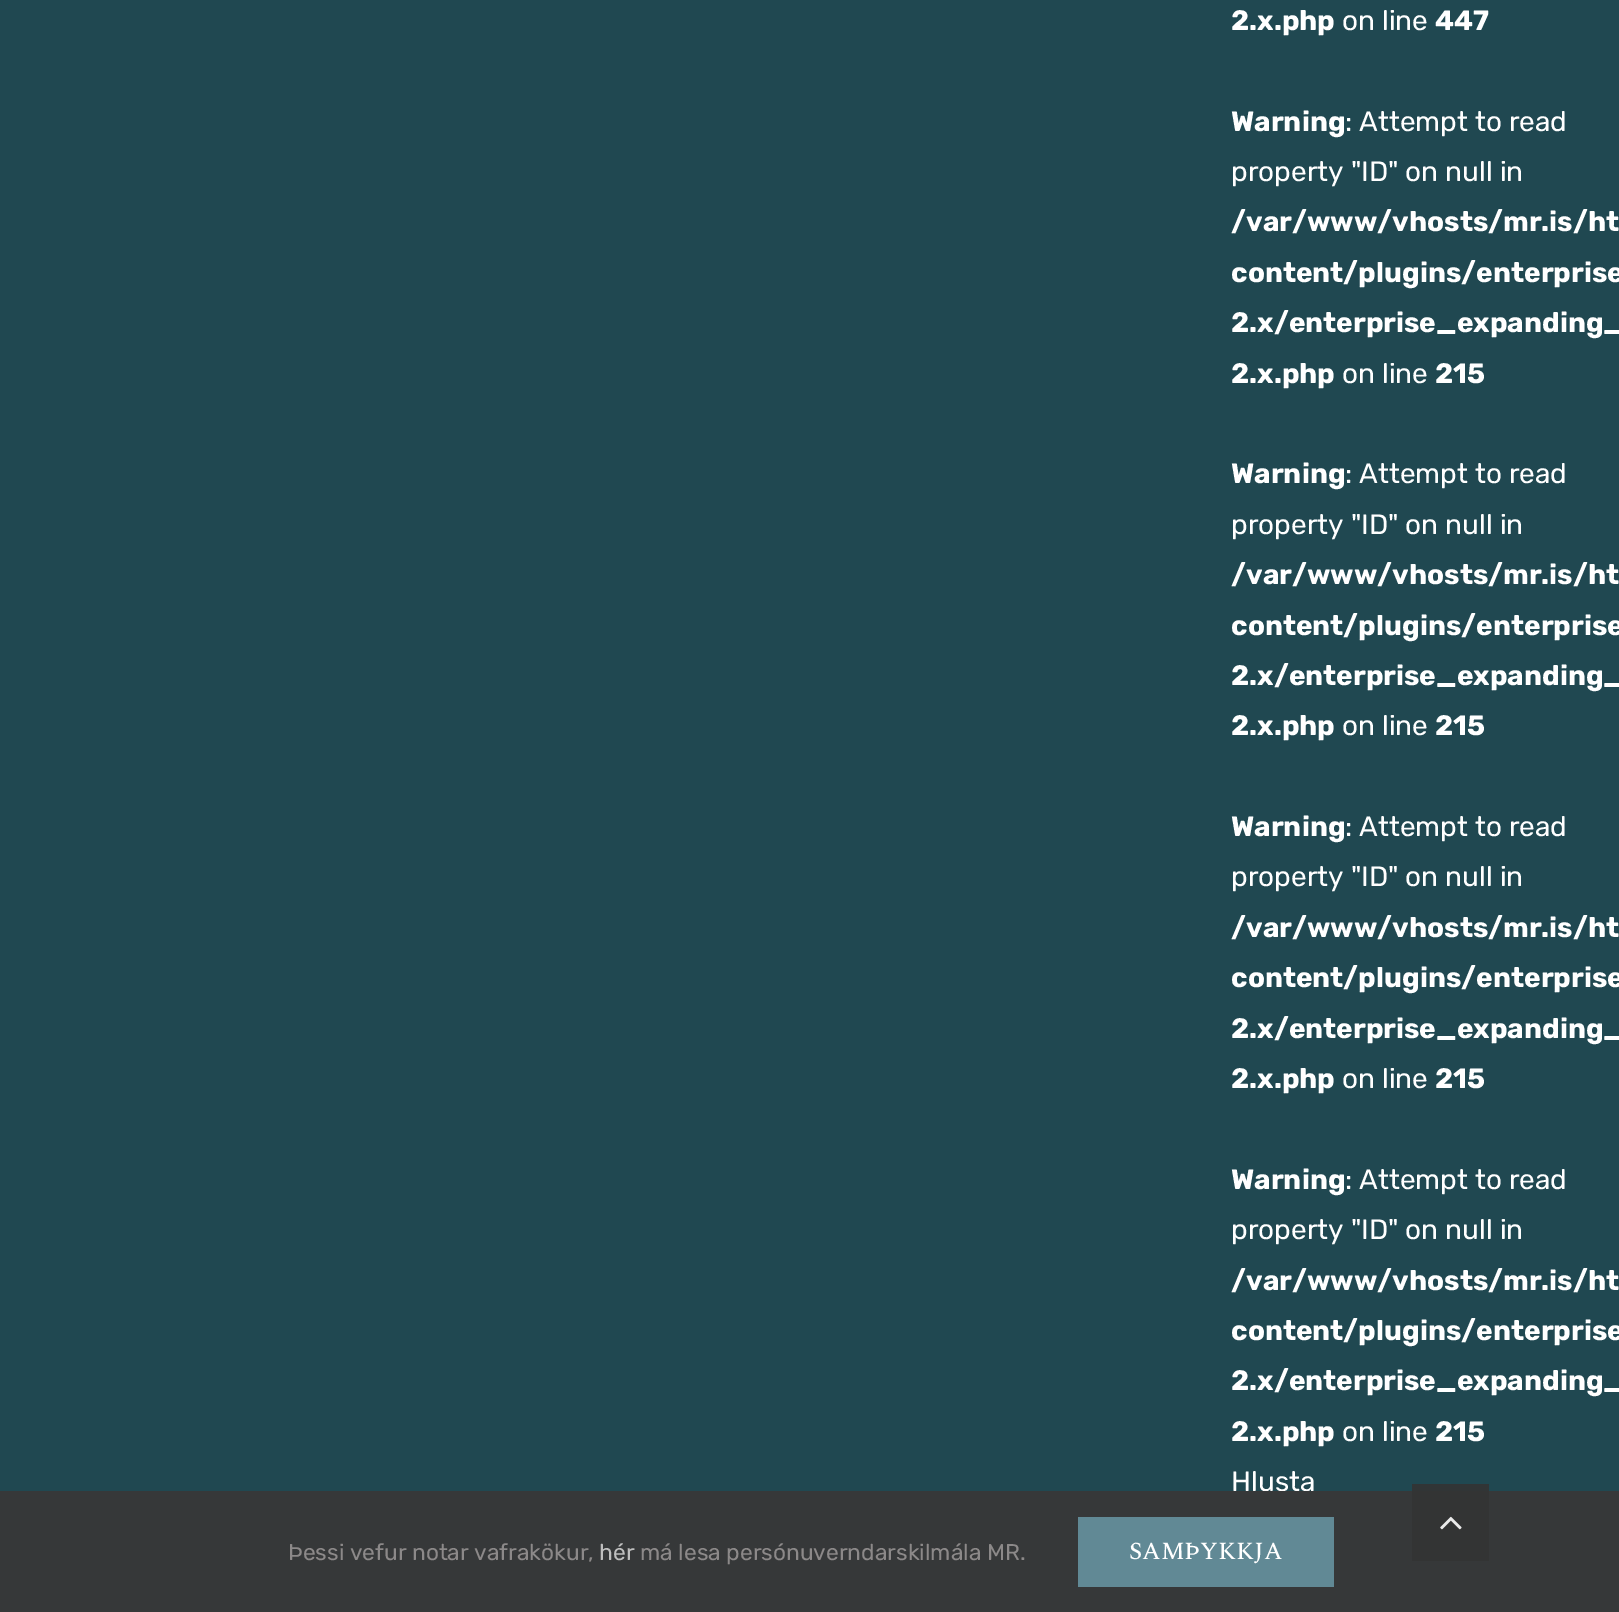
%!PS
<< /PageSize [1619 1612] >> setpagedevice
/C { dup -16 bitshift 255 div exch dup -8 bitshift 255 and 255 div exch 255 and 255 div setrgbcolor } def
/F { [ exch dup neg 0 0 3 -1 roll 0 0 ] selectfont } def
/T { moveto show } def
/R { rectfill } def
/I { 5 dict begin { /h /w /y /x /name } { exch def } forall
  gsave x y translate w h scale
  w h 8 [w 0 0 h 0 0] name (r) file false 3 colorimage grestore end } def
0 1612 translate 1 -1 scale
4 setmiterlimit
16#204851 C
0 0 1619 1612 R
16#313536 C
1412 1484 77 7 R
/Rubik-Bold 28 F
16#FFFFFF C
(2.x.php) 1231 30 T
/Rubik-Regular 28 F
(on line) 1342 30 T
/Rubik-Bold 28 F
(447) 1435 30 T
(Warning) 1231 131 T
/Rubik-Regular 28 F
(: Attempt to read) 1345 131 T
(property "ID" on null in) 1231 181 T
/Rubik-Bold 28 F
(/var/www/vhosts/mr.is/ht) 1231 231 T
(content/plugins/enterprise) 1231 282 T
(2.x/enterprise_expanding_) 1231 332 T
(2.x.php) 1231 383 T
/Rubik-Regular 28 F
(on line) 1342 383 T
/Rubik-Bold 28 F
(215) 1435 383 T
(Warning) 1231 483 T
/Rubik-Regular 28 F
(: Attempt to read) 1345 483 T
(property "ID" on null in) 1231 534 T
/Rubik-Bold 28 F
(/var/www/vhosts/mr.is/ht) 1231 584 T
(content/plugins/enterprise) 1231 635 T
(2.x/enterprise_expanding_) 1231 685 T
(2.x.php) 1231 735 T
/Rubik-Regular 28 F
(on line) 1342 735 T
/Rubik-Bold 28 F
(215) 1435 735 T
(Warning) 1231 836 T
/Rubik-Regular 28 F
(: Attempt to read) 1345 836 T
(property "ID" on null in) 1231 886 T
/Rubik-Bold 28 F
(/var/www/vhosts/mr.is/ht) 1231 937 T
(content/plugins/enterprise) 1231 987 T
(2.x/enterprise_expanding_) 1231 1038 T
(2.x.php) 1231 1088 T
/Rubik-Regular 28 F
(on line) 1342 1088 T
/Rubik-Bold 28 F
(215) 1435 1088 T
(Warning) 1231 1189 T
/Rubik-Regular 28 F
(: Attempt to read) 1345 1189 T
(property "ID" on null in) 1231 1239 T
/Rubik-Bold 28 F
(/var/www/vhosts/mr.is/ht) 1231 1290 T
(content/plugins/enterprise) 1231 1340 T
(2.x/enterprise_expanding_) 1231 1390 T
(2.x.php) 1231 1441 T
/Rubik-Regular 28 F
(on line) 1342 1441 T
/Rubik-Bold 28 F
(215) 1435 1441 T
/Rubik-Regular 28 F
(Hlusta) 1231 1491 T
16#363839 C
0 1491 1619 121 R
16#333434 C
1412 1491 77 70 R
(1.rgb) 1440 1516 22 14 I
/Rubik-Regular 22.75 F
16#8C8989 C
(Þessi vefur notar vafrakökur,) 288 1560 T
16#BFBFBF C
(hér) 599 1560 T
16#8C8989 C
(má lesa persónuverndarskilmála MR.) 640 1560 T
16#618995 C
1078 1517 256 70 R
/Spectral-Medium 24.5 F
16#FFFFFF C
(SAMÞYKKJA) 1129 1559 T
showpage
